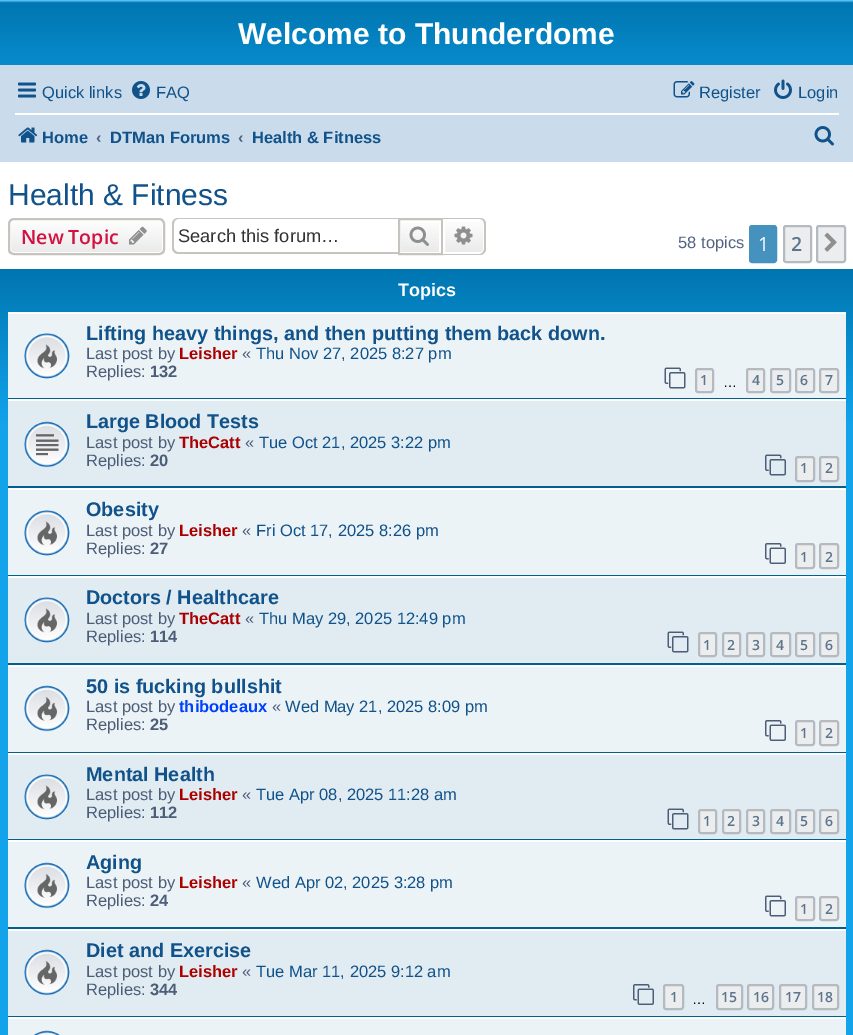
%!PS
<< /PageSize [853 1035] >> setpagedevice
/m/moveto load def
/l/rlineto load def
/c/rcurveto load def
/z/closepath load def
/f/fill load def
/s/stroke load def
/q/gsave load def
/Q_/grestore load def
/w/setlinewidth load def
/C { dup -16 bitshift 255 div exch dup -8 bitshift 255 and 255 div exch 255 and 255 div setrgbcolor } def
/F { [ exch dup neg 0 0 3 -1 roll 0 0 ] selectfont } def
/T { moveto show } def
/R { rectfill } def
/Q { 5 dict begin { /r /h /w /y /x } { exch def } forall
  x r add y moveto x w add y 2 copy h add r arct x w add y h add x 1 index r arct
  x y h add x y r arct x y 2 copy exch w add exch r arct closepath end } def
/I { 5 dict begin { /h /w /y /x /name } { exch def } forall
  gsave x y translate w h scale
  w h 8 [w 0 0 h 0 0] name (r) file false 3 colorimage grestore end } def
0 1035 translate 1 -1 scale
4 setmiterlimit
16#FFFFFF C
0 0 853 1035 R
q 0 0 m 853 0 l 0 65 l -853 0 l z clip newpath
<< /ShadingType 2 /ColorSpace /DeviceRGB /Coords [427 0 427 138] /Extend [true true] /Function << /FunctionType 3 /Domain [0 1] /Functions [<< /FunctionType 2 /Domain [0 1] /C0 [.416 .808 1] /C1 [0 .463 .694] /N 1 >> << /FunctionType 2 /Domain [0 1] /C0 [0 .463 .694] /C1 [.071 .639 .922] /N 1 >>] /Bounds [.02] /Encode [0 1 0 1] >> >> shfill Q_
/LiberationSans-Bold 30 F
(Welcome to Thunderdome) 238 44 T
16#CADCEB C
0 65 853 97 R
(1.rgb) 18 82 18 16 I
/LiberationSans-Regular 16.5 F
16#105289 C
(Quick links) 42 98 T
(2.rgb) 132 81 18 18 I
(FAQ) 156 98 T
(3.rgb) 673 81 22 17 I
(Register) 699 98 T
(4.rgb) 774 79 18 20 I
(Login) 798 98 T
16#FFFFFF C
15 113 824 2 R
(5.rgb) 18 127 20 16 I
/LiberationSans-Bold 16.5 F
16#105289 C
(Home) 42 143 T
16#536482 C
(‹) 96 143 T
16#105289 C
(DTMan Forums) 110 143 T
16#536482 C
(‹) 238 143 T
16#105289 C
(Health & Fitness) 252 143 T
(6.rgb) 814 126 20 20 I
/LiberationSans-Regular 30 F
(Health & Fitness) 8 205 T
q
8 218 157 37 6 Q clip newpath
q 8 219 m 157 0 l 0 35 l -157 0 l z clip newpath
<< /ShadingType 2 /ColorSpace /DeviceRGB /Coords [86 219 86 254] /Extend [true true] /Function << /FunctionType 2 /Domain [0 1] /C0 [1 1 1] /C1 [.914 .914 .914] /N 1 >> >> shfill Q_
Q_
16#FFFFFF C
2 w
10 220 153 33 4 Q s
16#C7C3BF C
9 219 155 35 5 Q s
/OpenSans-SemiBold 19.5 F
16#D31141 C
(New Topic) 21 244 T
(7.rgb) 129 226 18 19 I
16#C7C3BF C
178 218 m 220 0 l 0 36 l -220 0 l -3 0 -6 -3 -6 -6 c 0 -24 l 0 -4 3 -6 6 -6 c z 178 219 m 220 0 l 0 33 l -220 0 l -2 0 -4 -2 -4 -4 c 0 -24 l 0 -3 2 -5 4 -5 c z eofill
/LiberationSans-Regular 18.25 F
16#333333 C
(Search this forum…) 178 242 T
q 401 223 m 38 0 l 0 29 l -38 0 l z clip newpath
<< /ShadingType 2 /ColorSpace /DeviceRGB /Coords [420 219 420 254] /Extend [true true] /Function << /FunctionType 2 /Domain [0 1] /C0 [1 1 1] /C1 [.914 .914 .914] /N 1 >> >> shfill Q_
16#C7C3BF C
399 219 43 35 rectstroke
(8.rgb) 409 226 20 20 I
q 444 220 m 36 0 l 2 0 4 2 4 4 c 0 25 l 0 2 -2 4 -4 4 c -36 0 l z clip newpath
<< /ShadingType 2 /ColorSpace /DeviceRGB /Coords [464 219 464 254] /Extend [true true] /Function << /FunctionType 2 /Domain [0 1] /C0 [1 1 1] /C1 [.914 .914 .914] /N 1 >> >> shfill Q_
16#FFFFFF C
444 220 m 36 0 l 2 0 4 2 4 4 c 0 25 l 0 2 -2 4 -4 4 c -36 0 l z s
16#C7C3BF C
442 218 m 38 0 l 3 0 6 2 6 6 c 0 25 l 0 3 -3 6 -6 6 c -38 0 l z 442 219 m 38 0 l 2 0 4 2 4 5 c 0 25 l 0 2 -2 5 -4 5 c -38 0 l z eofill
(9.rgb) 454 226 19 19 I
/LiberationSans-Regular 16.5 F
16#536482 C
(58 topics) 678 248 T
16#4692BF C
750 226 26 36 2 Q q f Q_
s
/OpenSans-Regular 19.5 F
16#FFFFFF C
(1) 758 251 T
16#ECEDEE C
784 226 27 36 2 Q q f Q_
16#B4BAC0 C
s
/OpenSans-SemiBold 19.5 F
16#5C758C C
(2) 791 251 T
16#ECEDEE C
817 226 28 36 2 Q q f Q_
16#B4BAC0 C
s
(10.rgb) 824 232 13 20 I
q 0 269 m 853 0 l 0 766 l -853 0 l z clip newpath
<< /ShadingType 2 /ColorSpace /DeviceRGB /Coords [427 269 427 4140] /Extend [true true] /Function << /FunctionType 3 /Domain [0 1] /Functions [<< /FunctionType 2 /Domain [0 1] /C0 [0 .463 .694] /C1 [.071 .639 .922] /N 1 >> << /FunctionType 2 /Domain [0 1] /C0 [.071 .639 .922] /C1 [.071 .639 .922] /N 1 >>] /Bounds [.04] /Encode [0 1 0 1] >> >> shfill Q_
/LiberationSans-Bold 18 F
16#FFFFFF C
(Topics) 398 296 T
16#ECF3F7 C
8 314 838 84 R
16#FFFFFF C
8 312 838 2 R
16#00608F C
8 398 838 1 R
(11.rgb) 24 333 46 46 I
/LiberationSans-Bold 19.8 F
16#105289 C
(Lifting heavy things, and then putting them back down.) 86 340 T
/LiberationSans-Regular 16.5 F
16#4C5D77 C
(Last post by) 86 359 T
/LiberationSans-Bold 16.5 F
16#AA0000 C
(Leisher) 179 359 T
/LiberationSans-Regular 16.5 F
16#4C5D77 C
(«) 242 359 T
16#105289 C
(Thu Nov 27, 2025 8:27 pm) 256 359 T
16#4C5D77 C
(Replies:) 86 377 T
/LiberationSans-Bold 16.5 F
(132) 150 377 T
(12.rgb) 664 367 22 22 I
16#ECEDEE C
696 369 17 23 2 Q q f Q_
16#B4BAC0 C
s
/OpenSans-SemiBold 14 F
16#5C758C C
(1) 700 385 T
16#ECEDEE C
747 369 17 23 2 Q q f Q_
16#B4BAC0 C
s
16#5C758C C
(4) 752 385 T
16#ECEDEE C
771 369 19 23 2 Q q f Q_
16#B4BAC0 C
s
16#5C758C C
(5) 776 385 T
16#ECEDEE C
796 369 18 23 2 Q q f Q_
16#B4BAC0 C
s
16#5C758C C
(6) 800 385 T
16#ECEDEE C
820 369 18 23 2 Q q f Q_
16#B4BAC0 C
s
16#5C758C C
(7) 825 385 T
/LiberationSans-Regular 14 F
16#000000 C
(…) 723 387 T
16#E1EBF2 C
8 401 838 85 R
16#FFFFFF C
8 399 838 2 R
16#00608F C
8 486 838 2 R
(13.rgb) 24 421 46 47 I
/LiberationSans-Bold 19.8 F
16#105289 C
(Large Blood Tests) 86 428 T
/LiberationSans-Regular 16.5 F
16#4C5D77 C
(Last post by) 86 448 T
/LiberationSans-Bold 16.5 F
16#AA0000 C
(TheCatt) 179 448 T
/LiberationSans-Regular 16.5 F
16#4C5D77 C
(«) 245 448 T
16#105289 C
(Tue Oct 21, 2025 3:22 pm) 259 448 T
16#4C5D77 C
(Replies:) 86 466 T
/LiberationSans-Bold 16.5 F
(20) 150 466 T
(14.rgb) 765 454 21 22 I
16#ECEDEE C
796 457 18 24 2 Q q f Q_
16#B4BAC0 C
s
/OpenSans-SemiBold 14 F
16#5C758C C
(1) 800 473 T
16#ECEDEE C
820 457 18 24 2 Q q f Q_
16#B4BAC0 C
s
16#5C758C C
(2) 825 473 T
16#ECF3F7 C
8 490 838 85 R
16#FFFFFF C
8 488 838 2 R
16#00608F C
8 575 838 1 R
(11.rgb) 24 510 46 46 I
/LiberationSans-Bold 19.8 F
16#105289 C
(Obesity) 86 516 T
/LiberationSans-Regular 16.5 F
16#4C5D77 C
(Last post by) 86 536 T
/LiberationSans-Bold 16.5 F
16#AA0000 C
(Leisher) 179 536 T
/LiberationSans-Regular 16.5 F
16#4C5D77 C
(«) 242 536 T
16#105289 C
(Fri Oct 17, 2025 8:26 pm) 256 536 T
16#4C5D77 C
(Replies:) 86 554 T
/LiberationSans-Bold 16.5 F
(27) 150 554 T
(15.rgb) 765 543 21 21 I
16#ECEDEE C
796 544 18 24 2 Q q f Q_
16#B4BAC0 C
s
/OpenSans-SemiBold 14 F
16#5C758C C
(1) 800 562 T
16#ECEDEE C
820 544 18 24 2 Q q f Q_
16#B4BAC0 C
s
16#5C758C C
(2) 825 562 T
16#E1EBF2 C
8 578 838 85 R
16#FFFFFF C
8 576 838 2 R
16#00608F C
8 663 838 2 R
(16.rgb) 24 597 46 46 I
/LiberationSans-Bold 19.8 F
16#105289 C
(Doctors / Healthcare) 86 604 T
/LiberationSans-Regular 16.5 F
16#4C5D77 C
(Last post by) 86 624 T
/LiberationSans-Bold 16.5 F
16#AA0000 C
(TheCatt) 179 624 T
/LiberationSans-Regular 16.5 F
16#4C5D77 C
(«) 245 624 T
16#105289 C
(Thu May 29, 2025 12:49 pm) 259 624 T
16#4C5D77 C
(Replies:) 86 642 T
/LiberationSans-Bold 16.5 F
(114) 150 642 T
(17.rgb) 667 631 22 22 I
16#ECEDEE C
699 633 17 23 2 Q q f Q_
16#B4BAC0 C
s
/OpenSans-SemiBold 14 F
16#5C758C C
(1) 703 650 T
16#ECEDEE C
723 633 17 23 2 Q q f Q_
16#B4BAC0 C
s
16#5C758C C
(2) 727 650 T
16#ECEDEE C
747 633 17 23 2 Q q f Q_
16#B4BAC0 C
s
16#5C758C C
(3) 752 650 T
16#ECEDEE C
771 633 19 23 2 Q q f Q_
16#B4BAC0 C
s
16#5C758C C
(4) 776 650 T
16#ECEDEE C
796 633 18 23 2 Q q f Q_
16#B4BAC0 C
s
16#5C758C C
(5) 800 650 T
16#ECEDEE C
820 633 18 23 2 Q q f Q_
16#B4BAC0 C
s
16#5C758C C
(6) 825 650 T
16#ECF3F7 C
8 667 838 85 R
16#FFFFFF C
8 665 838 2 R
16#00608F C
8 752 838 1 R
(18.rgb) 24 685 46 47 I
/LiberationSans-Bold 19.8 F
16#105289 C
(50 is fucking bullshit) 86 693 T
/LiberationSans-Regular 16.5 F
16#4C5D77 C
(Last post by) 86 712 T
/LiberationSans-Bold 16.5 F
16#0040FF C
(thibodeaux) 179 712 T
/LiberationSans-Regular 16.5 F
16#4C5D77 C
(«) 272 712 T
16#105289 C
(Wed May 21, 2025 8:09 pm) 285 712 T
16#4C5D77 C
(Replies:) 86 730 T
/LiberationSans-Bold 16.5 F
(25) 150 730 T
(15.rgb) 765 720 21 21 I
16#ECEDEE C
796 721 18 24 2 Q q f Q_
16#B4BAC0 C
s
/OpenSans-SemiBold 14 F
16#5C758C C
(1) 800 738 T
16#ECEDEE C
820 721 18 24 2 Q q f Q_
16#B4BAC0 C
s
16#5C758C C
(2) 825 738 T
16#E1EBF2 C
8 755 838 84 R
16#FFFFFF C
8 753 838 2 R
16#00608F C
8 839 838 1 R
(16.rgb) 24 774 46 46 I
/LiberationSans-Bold 19.8 F
16#105289 C
(Mental Health) 86 781 T
/LiberationSans-Regular 16.5 F
16#4C5D77 C
(Last post by) 86 800 T
/LiberationSans-Bold 16.5 F
16#AA0000 C
(Leisher) 179 800 T
/LiberationSans-Regular 16.5 F
16#4C5D77 C
(«) 242 800 T
16#105289 C
(Tue Apr 08, 2025 11:28 am) 256 800 T
16#4C5D77 C
(Replies:) 86 818 T
/LiberationSans-Bold 16.5 F
(112) 150 818 T
(17.rgb) 667 808 22 22 I
16#ECEDEE C
699 810 17 23 2 Q q f Q_
16#B4BAC0 C
s
/OpenSans-SemiBold 14 F
16#5C758C C
(1) 703 826 T
16#ECEDEE C
723 810 17 23 2 Q q f Q_
16#B4BAC0 C
s
16#5C758C C
(2) 727 826 T
16#ECEDEE C
747 810 17 23 2 Q q f Q_
16#B4BAC0 C
s
16#5C758C C
(3) 752 826 T
16#ECEDEE C
771 810 19 23 2 Q q f Q_
16#B4BAC0 C
s
16#5C758C C
(4) 776 826 T
16#ECEDEE C
796 810 18 23 2 Q q f Q_
16#B4BAC0 C
s
16#5C758C C
(5) 800 826 T
16#ECEDEE C
820 810 18 23 2 Q q f Q_
16#B4BAC0 C
s
16#5C758C C
(6) 825 826 T
16#ECF3F7 C
8 842 838 85 R
16#FFFFFF C
8 840 838 2 R
16#00608F C
8 927 838 2 R
(18.rgb) 24 862 46 47 I
/LiberationSans-Bold 19.8 F
16#105289 C
(Aging) 86 869 T
/LiberationSans-Regular 16.5 F
16#4C5D77 C
(Last post by) 86 888 T
/LiberationSans-Bold 16.5 F
16#AA0000 C
(Leisher) 179 888 T
/LiberationSans-Regular 16.5 F
16#4C5D77 C
(«) 242 888 T
16#105289 C
(Wed Apr 02, 2025 3:28 pm) 256 888 T
16#4C5D77 C
(Replies:) 86 906 T
/LiberationSans-Bold 16.5 F
(24) 150 906 T
(19.rgb) 765 895 21 22 I
16#ECEDEE C
796 897 18 23 2 Q q f Q_
16#B4BAC0 C
s
/OpenSans-SemiBold 14 F
16#5C758C C
(1) 800 914 T
16#ECEDEE C
820 897 18 23 2 Q q f Q_
16#B4BAC0 C
s
16#5C758C C
(2) 825 914 T
16#E1EBF2 C
8 931 838 85 R
16#FFFFFF C
8 929 838 2 R
16#00608F C
8 1016 838 1 R
(20.rgb) 24 949 46 47 I
/LiberationSans-Bold 19.8 F
16#105289 C
(Diet and Exercise) 86 957 T
/LiberationSans-Regular 16.5 F
16#4C5D77 C
(Last post by) 86 977 T
/LiberationSans-Bold 16.5 F
16#AA0000 C
(Leisher) 179 977 T
/LiberationSans-Regular 16.5 F
16#4C5D77 C
(«) 242 977 T
16#105289 C
(Tue Mar 11, 2025 9:12 am) 256 977 T
16#4C5D77 C
(Replies:) 86 995 T
/LiberationSans-Bold 16.5 F
(344) 150 995 T
(21.rgb) 633 984 21 21 I
16#ECEDEE C
664 985 19 24 2 Q q f Q_
16#B4BAC0 C
s
/OpenSans-SemiBold 14 F
16#5C758C C
(1) 670 1002 T
/LiberationSans-Regular 14 F
16#000000 C
(…) 692 1004 T
16#ECEDEE C
717 985 25 24 2 Q q f Q_
16#B4BAC0 C
s
/OpenSans-SemiBold 14 F
16#5C758C C
(15) 721 1002 T
16#ECEDEE C
748 985 25 24 2 Q q f Q_
16#B4BAC0 C
s
16#5C758C C
(16) 753 1002 T
16#ECEDEE C
780 985 26 24 2 Q q f Q_
16#B4BAC0 C
s
16#5C758C C
(17) 785 1002 T
16#ECEDEE C
813 985 25 24 2 Q q f Q_
16#B4BAC0 C
s
16#5C758C C
(18) 817 1002 T
16#ECF3F7 C
8 1019 838 16 R
16#FFFFFF C
8 1017 838 2 R
(22.rgb) 34 1030 26 5 I
showpage
